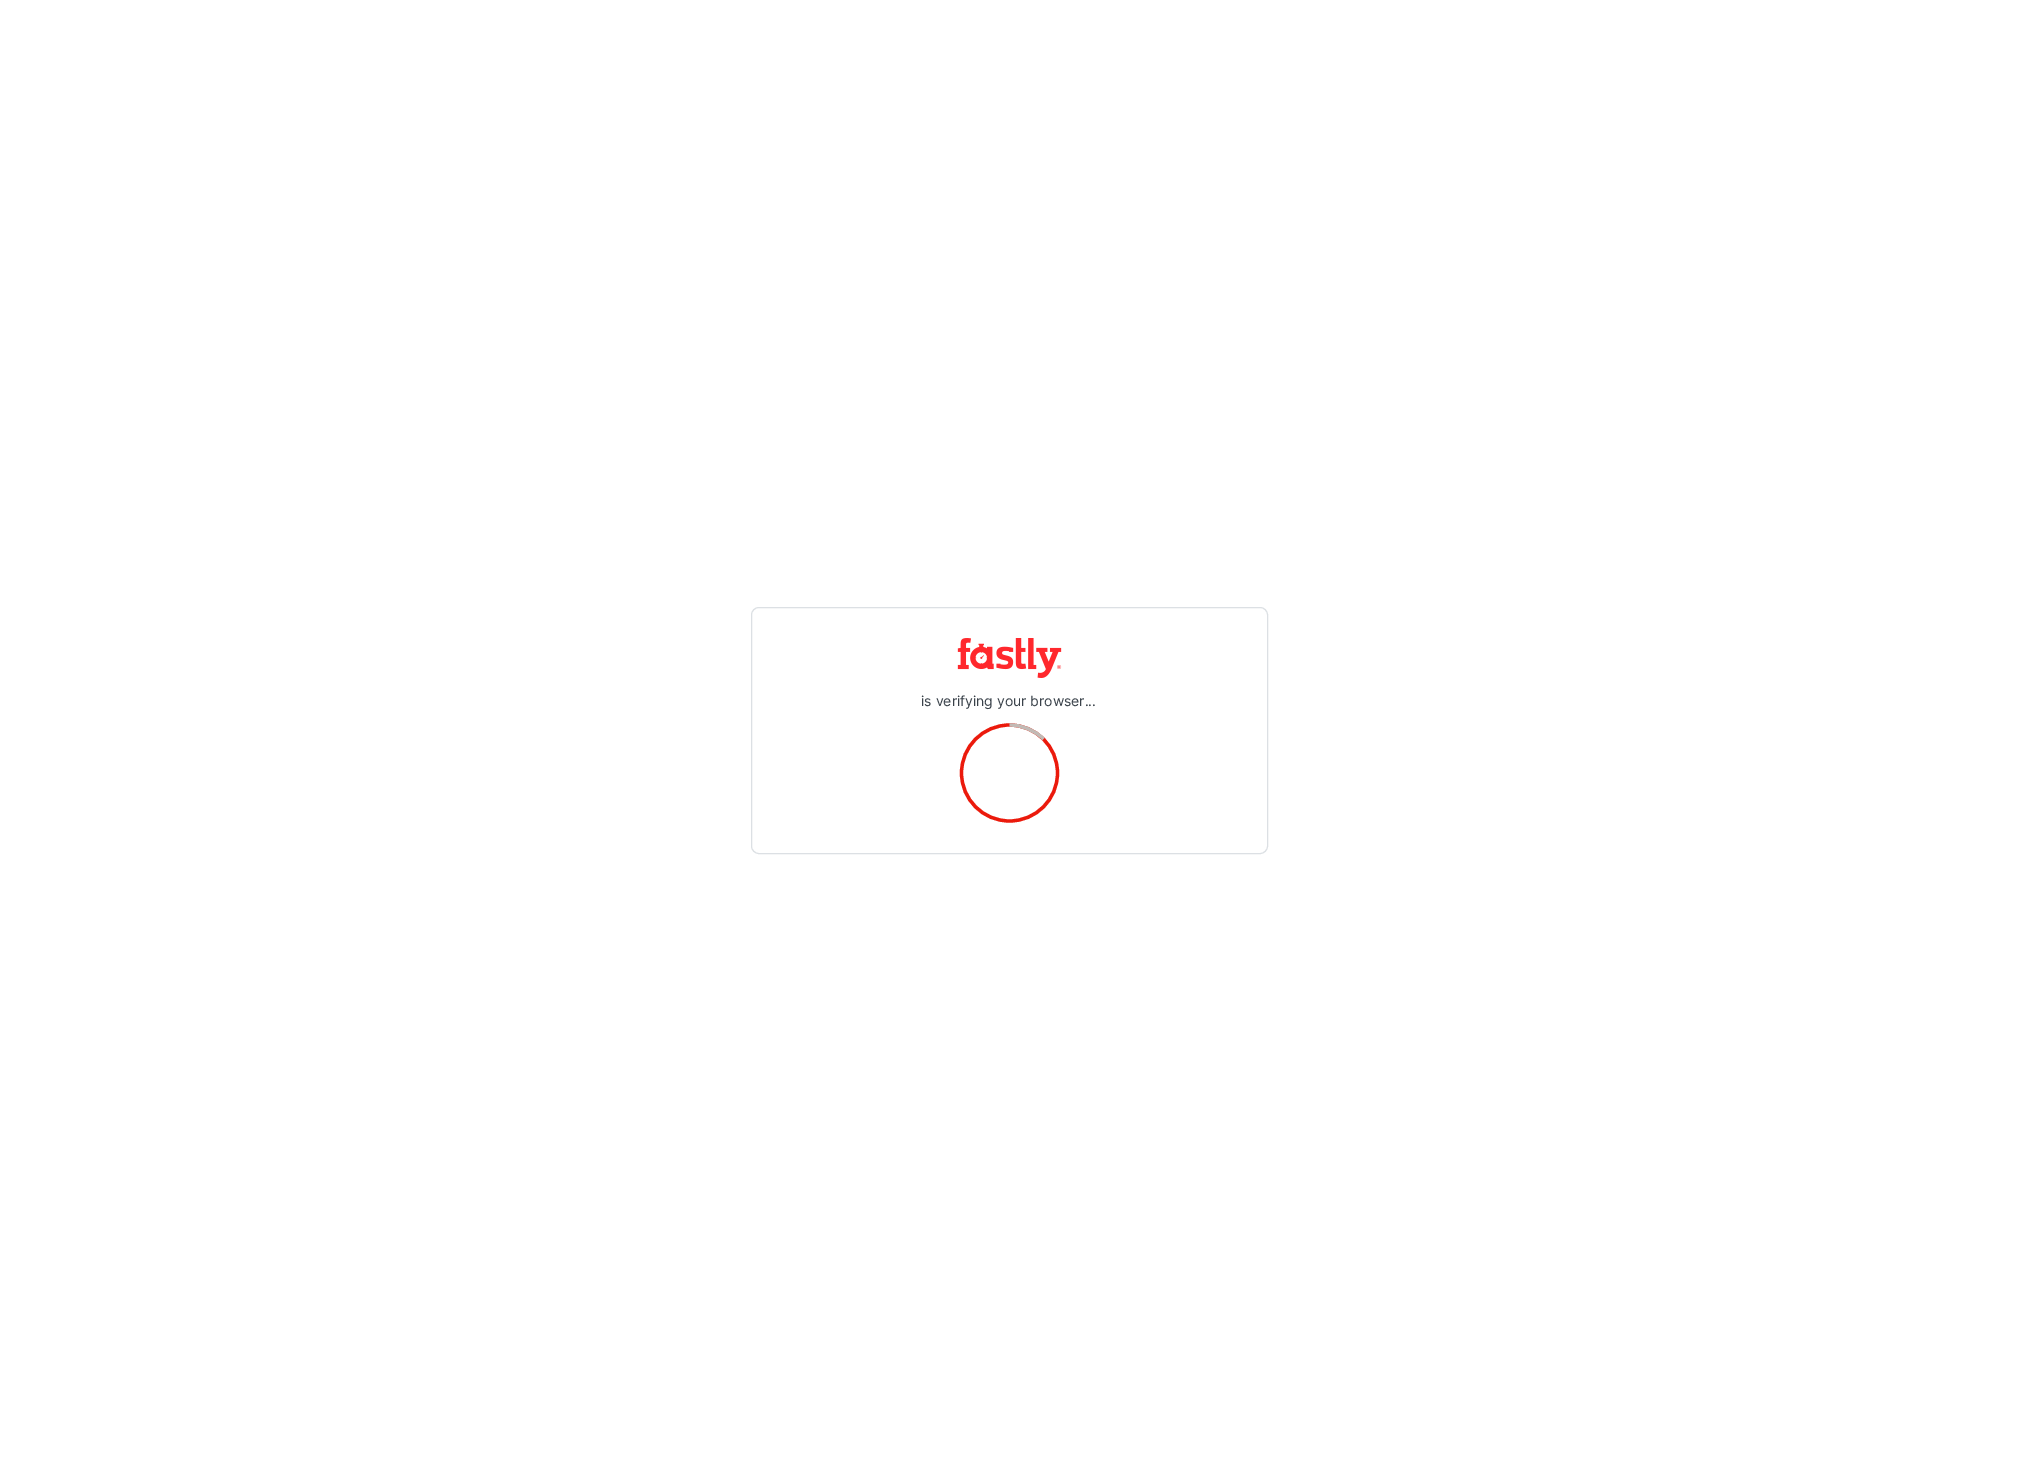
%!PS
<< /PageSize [2018 1461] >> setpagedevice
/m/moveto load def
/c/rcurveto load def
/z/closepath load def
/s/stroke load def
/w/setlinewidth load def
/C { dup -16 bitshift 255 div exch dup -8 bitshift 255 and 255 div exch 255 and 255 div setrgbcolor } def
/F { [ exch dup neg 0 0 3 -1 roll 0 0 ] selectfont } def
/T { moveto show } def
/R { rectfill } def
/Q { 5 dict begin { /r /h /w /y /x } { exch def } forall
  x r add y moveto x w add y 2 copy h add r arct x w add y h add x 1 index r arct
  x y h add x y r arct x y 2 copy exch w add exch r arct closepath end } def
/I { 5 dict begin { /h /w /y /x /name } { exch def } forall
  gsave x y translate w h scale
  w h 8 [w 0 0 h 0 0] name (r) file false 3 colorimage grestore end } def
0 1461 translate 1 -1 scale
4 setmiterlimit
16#FFFFFF C
0 0 2018 1461 R
16#DCE0E4 C
751.5 607.5 516 246 7.5 Q s
(1.rgb) 957 638 105 40 I
/Inter-Regular 14 F
16#3A424A C
(is verifying your browser...) 921 706 T
16#EB1A0C C
3.3 w
961.5 773 m 0 -26.5 21.5 -48 48 -48 c 26.5 0 48 21.5 48 48 c 0 26.5 -21.5 48 -48 48 c -26.5 0 -48 -21.5 -48 -48 c z s
16#C2BAB5 C
1043.5 739 m -9 -9 -21.5 -14 -34 -14 c s
showpage
